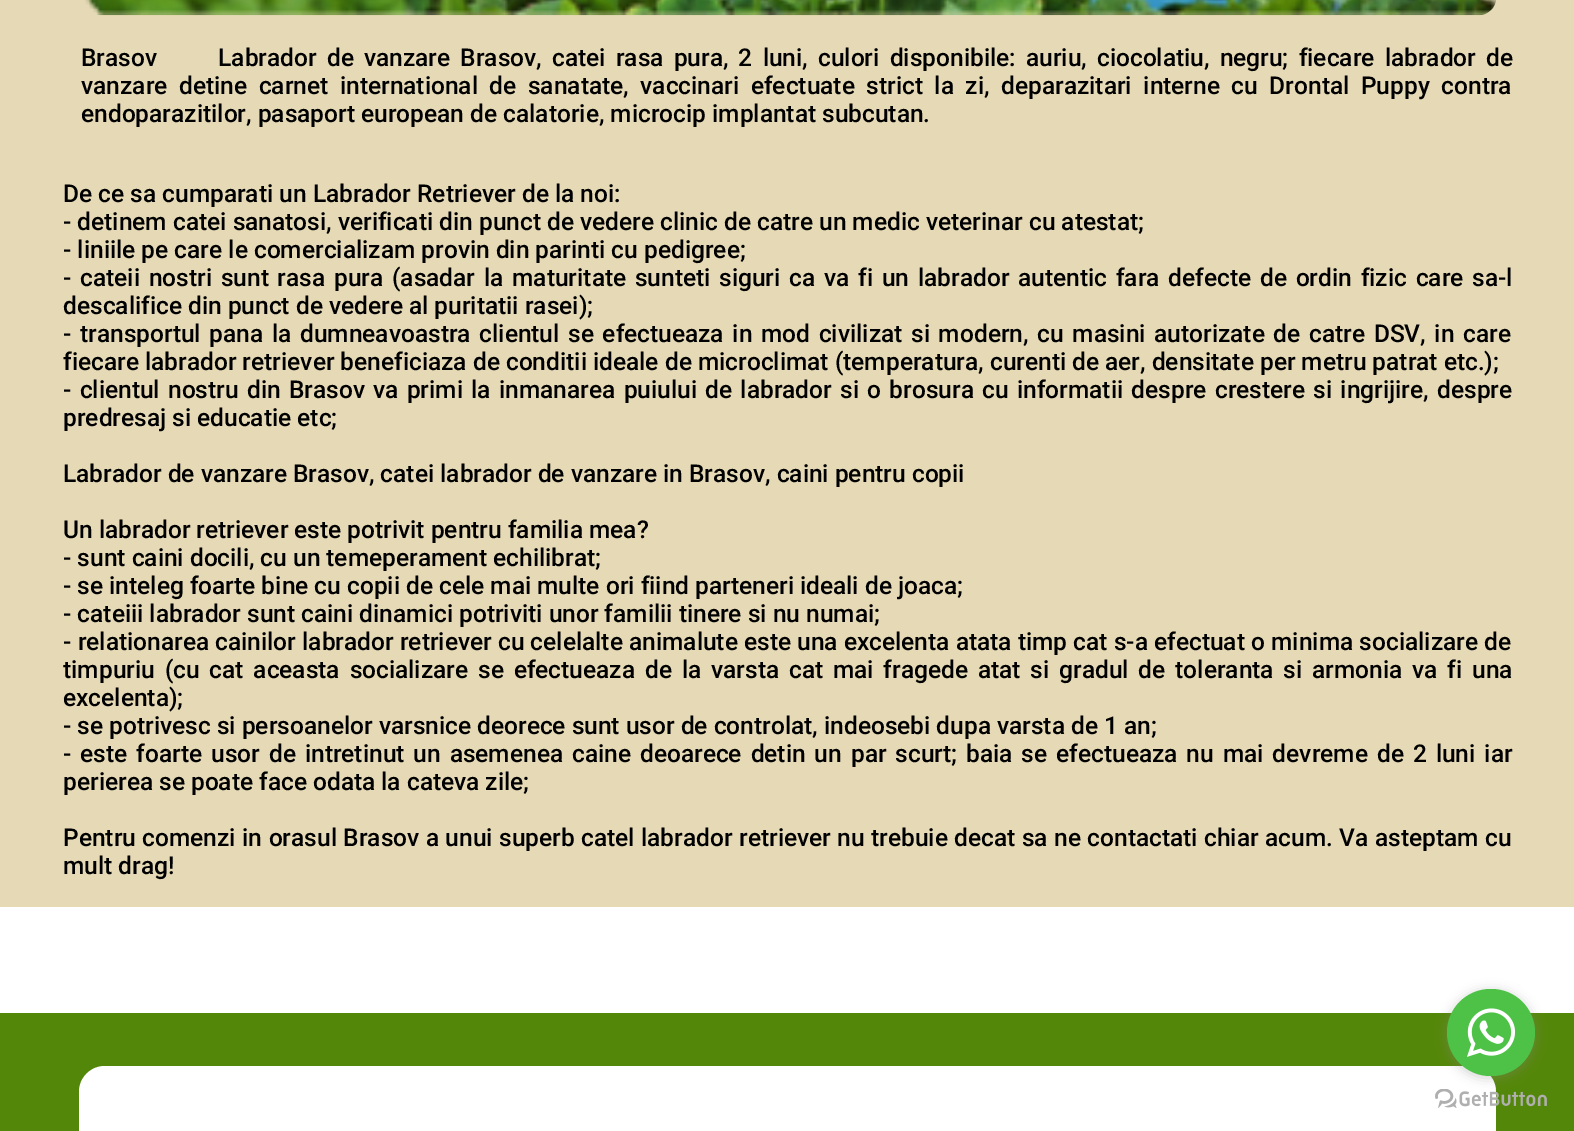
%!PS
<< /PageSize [1574 1131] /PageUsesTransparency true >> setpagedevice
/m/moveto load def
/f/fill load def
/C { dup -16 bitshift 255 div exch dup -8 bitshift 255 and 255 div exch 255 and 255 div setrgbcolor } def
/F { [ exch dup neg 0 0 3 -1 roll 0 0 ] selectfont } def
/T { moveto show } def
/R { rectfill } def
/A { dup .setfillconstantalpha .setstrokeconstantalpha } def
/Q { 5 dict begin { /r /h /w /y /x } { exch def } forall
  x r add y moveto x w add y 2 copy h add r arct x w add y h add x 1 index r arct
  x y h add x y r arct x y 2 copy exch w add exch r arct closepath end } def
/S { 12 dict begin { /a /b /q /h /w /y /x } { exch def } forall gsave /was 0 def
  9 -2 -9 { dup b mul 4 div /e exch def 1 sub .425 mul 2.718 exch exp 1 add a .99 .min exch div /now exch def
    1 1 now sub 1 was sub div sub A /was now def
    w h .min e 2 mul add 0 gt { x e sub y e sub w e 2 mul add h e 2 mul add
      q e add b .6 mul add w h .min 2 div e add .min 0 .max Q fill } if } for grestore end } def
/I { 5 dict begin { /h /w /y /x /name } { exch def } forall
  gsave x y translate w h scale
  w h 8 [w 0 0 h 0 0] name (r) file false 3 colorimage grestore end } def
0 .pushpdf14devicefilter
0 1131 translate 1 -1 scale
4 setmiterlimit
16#FFFFFF C
0 0 1574 1131 R
16#E6DAB6 C
0 0 1574 907 R
(1.rgb) 85 0 1411 16 I
/Roboto-Medium 24.5 F
16#000000 C
81 66 m 4.1 0 32 (Brasov      Labrador de vanzare Brasov, catei rasa pura, 2 luni, culori disponibile: auriu, ciocolatiu, negru; fiecare labrador de) widthshow
81 94 m 5.5 0 32 (vanzare detine carnet international de sanatate, vaccinari efectuate strict la zi, deparazitari interne cu Drontal Puppy contra) widthshow
(endoparazitilor, pasaport european de calatorie, microcip implantat subcutan.) 81 122 T
(De ce sa cumparati un Labrador Retriever de la noi:) 63 202 T
(- detinem catei sanatosi, verificati din punct de vedere clinic de catre un medic veterinar cu atestat;) 63 230 T
(- liniile pe care le comercializam provin din parinti cu pedigree;) 63 258 T
63 286 m 2.7 0 32 (- cateii nostri sunt rasa pura \(asadar la maturitate sunteti siguri ca va fi un labrador autentic fara defecte de ordin fizic care sa-l) widthshow
(descalifice din punct de vedere al puritatii rasei\);) 63 314 T
63 342 m 2.6 0 32 (- transportul pana la dumneavoastra clientul se efectueaza in mod civilizat si modern, cu masini autorizate de catre DSV, in care) widthshow
(fiecare labrador retriever beneficiaza de conditii ideale de microclimat \(temperatura, curenti de aer, densitate per metru patrat etc.\);) 63 370 T
63 398 m 2.2 0 32 (- clientul nostru din Brasov va primi la inmanarea puiului de labrador si o brosura cu informatii despre crestere si ingrijire, despre) widthshow
(predresaj si educatie etc;) 63 426 T
(Labrador de vanzare Brasov, catei labrador de vanzare in Brasov, caini pentru copii) 63 482 T
(Un labrador retriever este potrivit pentru familia mea?) 63 538 T
(- sunt caini docili, cu un temeperament echilibrat;) 63 566 T
(- se inteleg foarte bine cu copii de cele mai multe ori fiind parteneri ideali de joaca;) 63 594 T
(- cateiii labrador sunt caini dinamici potriviti unor familii tinere si nu numai;) 63 622 T
63 650 m .1 0 32 (- relationarea cainilor labrador retriever cu celelalte animalute este una excelenta atata timp cat s-a efectuat o minima socializare de) widthshow
63 678 m 3.8 0 32 (timpuriu \(cu cat aceasta socializare se efectueaza de la varsta cat mai fragede atat si gradul de toleranta si armonia va fi una) widthshow
(excelenta\);) 63 706 T
(- se potrivesc si persoanelor varsnice deorece sunt usor de controlat, indeosebi dupa varsta de 1 an;) 63 734 T
63 762 m 2.9 0 32 (- este foarte usor de intretinut un asemenea caine deoarece detin un par scurt; baia se efectueaza nu mai devreme de 2 luni iar) widthshow
(perierea se poate face odata la cateva zile;) 63 790 T
63 846 m .4 0 32 (Pentru comenzi in orasul Brasov a unui superb catel labrador retriever nu trebuie decat sa ne contactati chiar acum. Va asteptam cu) widthshow
(mult drag!) 63 874 T
16#538709 C
0 1013 1574 118 R
16#FFFFFF C
79 1066 1417 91 26 Q f
(3.rgb) 1435 1089 112 19 I
16#888888 C
1447 991 88 87 43.5 6 .4 S
16#4DC247 C
1447 989 88 87 43.5 Q f
(2.rgb) 1467 1008 49 49 I
.poppdf14devicefilter showpage
